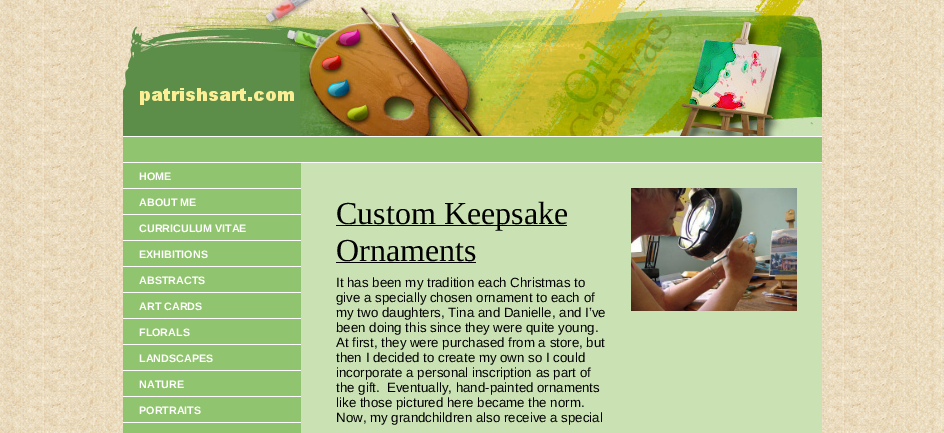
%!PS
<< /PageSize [944 433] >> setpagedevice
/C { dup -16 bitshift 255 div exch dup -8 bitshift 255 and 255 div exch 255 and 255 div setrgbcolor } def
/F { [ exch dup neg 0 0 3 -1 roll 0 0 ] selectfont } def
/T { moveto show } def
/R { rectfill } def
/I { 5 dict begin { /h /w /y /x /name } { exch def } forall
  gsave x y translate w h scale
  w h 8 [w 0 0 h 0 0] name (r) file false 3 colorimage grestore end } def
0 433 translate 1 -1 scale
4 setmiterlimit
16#FFFFFF C
0 0 944 433 R
(1.rgb) 0 0 944 433 I
(2.rgb) 123 0 699 52 I
(3.rgb) 123 52 11 84 I
(4.rgb) 134 52 166 84 I
(5.rgb) 300 52 522 84 I
123 136 699 1 R
16#91C46F C
123 137 699 25 R
16#FFFFFF C
123 162 699 1 R
16#CAE1B3 C
301 163 521 270 R
16#91C46F C
123 163 178 270 R
/LiberationSans-Bold 10.75 F
16#FFFFFF C
(HOME) 139 180 T
123 188 178 1 R
(ABOUT ME) 139 206 T
123 214 178 1 R
(CURRICULUM VITAE) 139 232 T
123 240 178 1 R
(EXHIBITIONS) 139 258 T
123 266 178 1 R
(ABSTRACTS) 139 284 T
123 292 178 1 R
(ART CARDS) 139 310 T
123 318 178 1 R
(FLORALS) 139 336 T
123 344 178 1 R
(LANDSCAPES) 139 362 T
123 370 178 1 R
(NATURE) 139 388 T
123 396 178 1 R
(PORTRAITS) 139 414 T
123 422 178 1 R
16#000000 C
336 225 231 1 R
/LiberationSerif-Regular 32 F
(Custom Keepsake) 336 224 T
(Ornaments) 336 261 T
336 262 140 1 R
/LiberationSans-Regular 13.3 F
(It has been my tradition each Christmas to) 336 287 T
(give a specially chosen ornament to each of) 336 302 T
(my two daughters, Tina and Danielle, and I’ve) 336 317 T
(been doing this since they were quite young.) 336 332 T
(At first, they were purchased from a store, but) 336 347 T
(then I decided to create my own so I could) 336 362 T
(incorporate a personal inscription as part of) 336 377 T
(the gift.  Eventually, hand-painted ornaments) 336 392 T
(like those pictured here became the norm.) 336 407 T
(Now, my grandchildren also receive a special) 336 422 T
(6.rgb) 631 188 166 123 I
showpage
